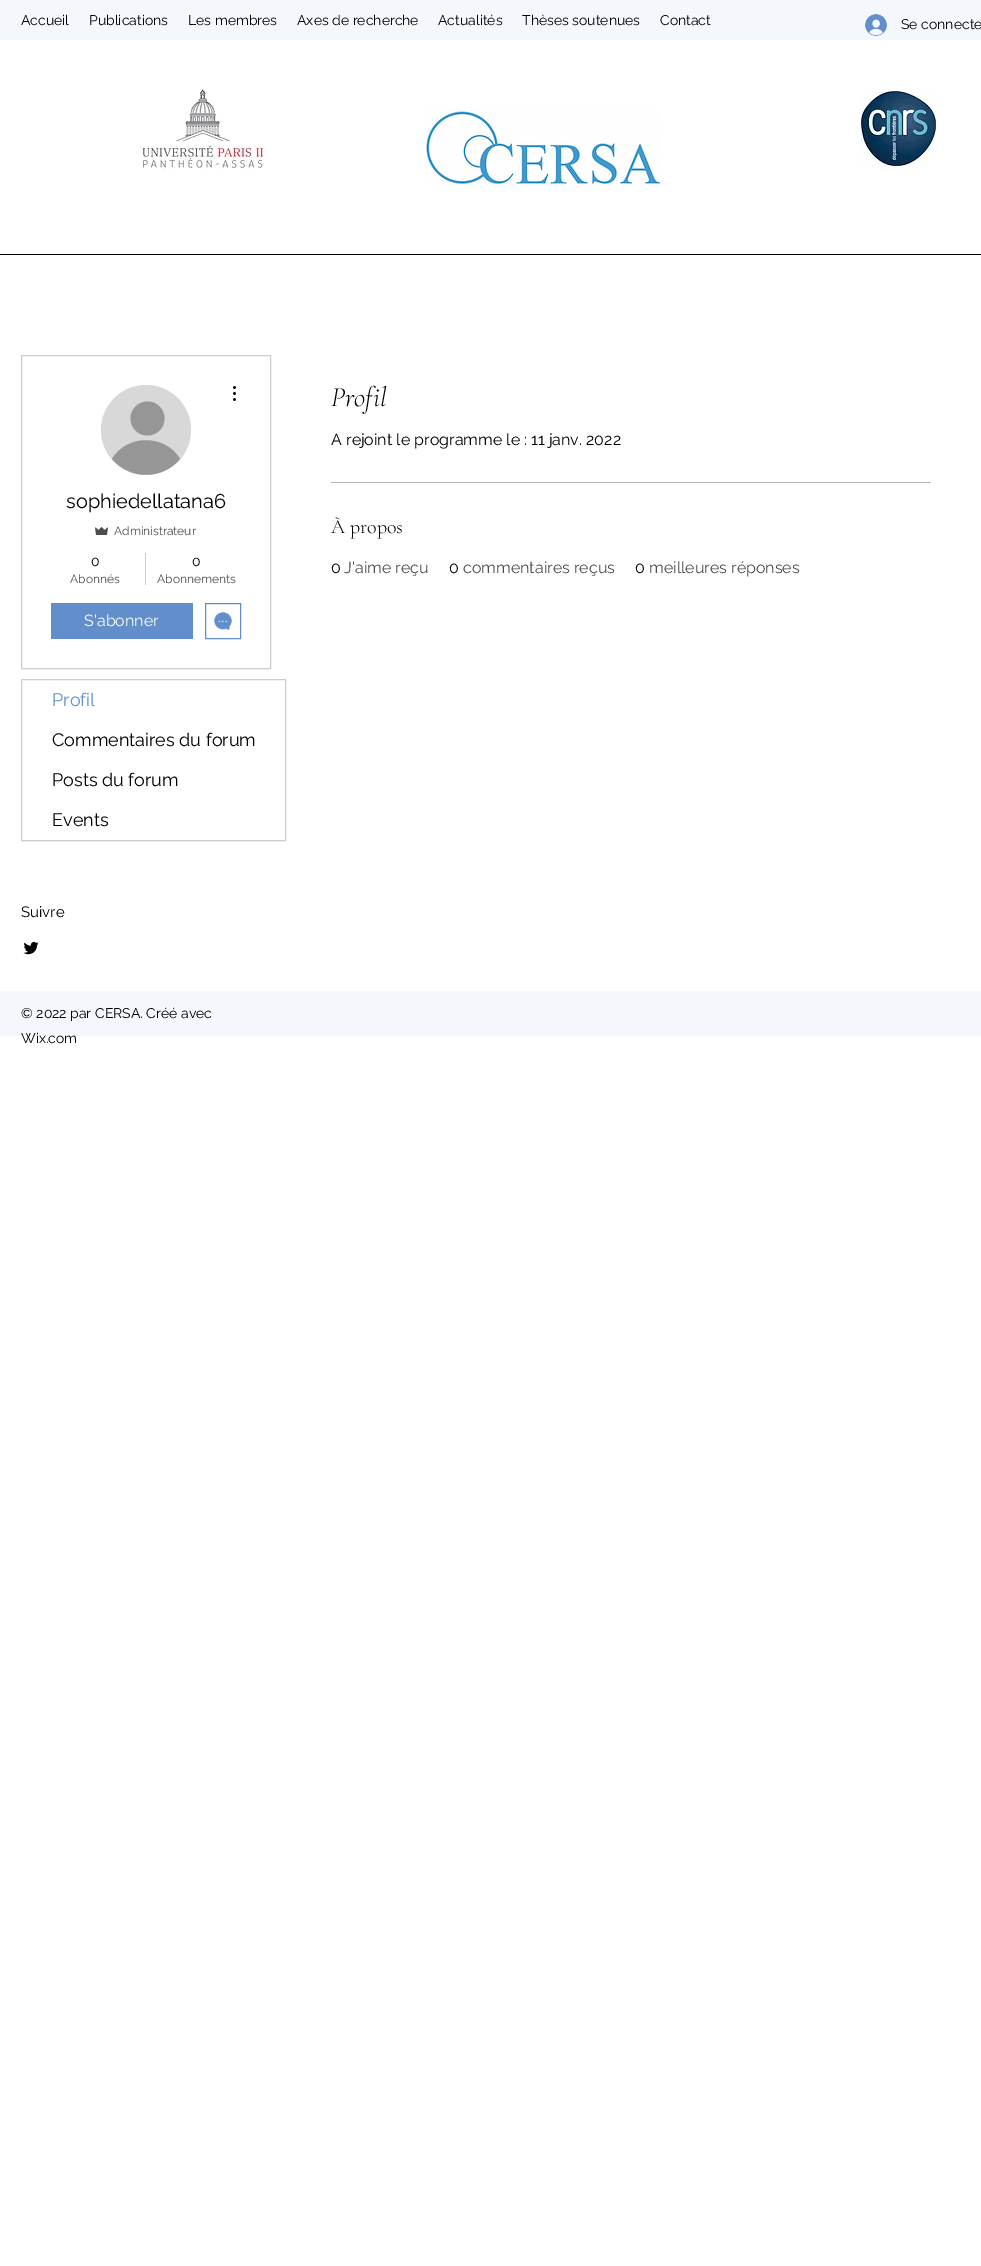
%!PS
<< /PageSize [981 2266] >> setpagedevice
/m/moveto load def
/c/rcurveto load def
/z/closepath load def
/f/fill load def
/C { dup -16 bitshift 255 div exch dup -8 bitshift 255 and 255 div exch 255 and 255 div setrgbcolor } def
/F { [ exch dup neg 0 0 3 -1 roll 0 0 ] selectfont } def
/T { moveto show } def
/R { rectfill } def
/O { newpath 0 360 arc closepath } def
/I { 5 dict begin { /h /w /y /x /name } { exch def } forall
  gsave x y translate w h scale
  w h 8 [w 0 0 h 0 0] name (r) file false 3 colorimage grestore end } def
0 2266 translate 1 -1 scale
4 setmiterlimit
16#FFFFFF C
0 0 981 2266 R
16#F4F7FB C
0 0 981 40 R
/Raleway-Regular 14 F
16#000000 C
(Accueil) 21 25 T
(Publications) 89 25 T
(Les membres) 188 25 T
(Axes de recherche) 297 25 T
(Actualités) 438 25 T
(Thèses soutenues) 522 25 T
(Contact) 660 25 T
(1.rgb) 865 14 22 22 I
(Se connecte) 901 29 T
(2.rgb) 139 89 125 80 I
(3.rgb) 426 109 234 77 I
(4.rgb) 861 91 75 75 I
0 254 981 1 R
16#CCCCCC C
21.5 355.5 249 313 rectstroke
16#D8D8D8 C
146 430 45 O f
16#969696 C
147.5 418.5 17 O f
180 459 m -18 21 -50 21 -68 0 c 15 -25 53 -25 68 0 c z f
(5.rgb) 233 386 3 15 I
/Raleway-Regular 20 F
16#000000 C
(sophiedellatana6) 66 508 T
(6.rgb) 95 527 13 8 I
/Raleway-Regular 12 F
16#4D4D4D C
(Administrateur) 114 535 T
/Raleway-Regular 14 F
16#000000 C
(0) 91 566 T
/Raleway-Regular 12 F
16#4D4D4D C
(Abonnés) 70 583 T
16#CCCCCC C
145 553 1 32 R
/Raleway-Regular 14 F
16#000000 C
(0) 192 566 T
/Raleway-Regular 12 F
16#4D4D4D C
(Abonnements) 157 583 T
16#628FCC C
51 603 142 36 R
/Raleway-Regular 16 F
16#FFFFFF C
(S'abonner) 84 626 T
16#628FCC C
205.5 603.5 35 35 rectstroke
(7.rgb) 214 612 18 18 I
16#CCCCCC C
21.5 679.5 264 161 rectstroke
/Raleway-Regular 18 F
16#628FCC C
(Profil) 52 706 T
16#000000 C
(Commentaires du forum) 52 746 T
(Posts du forum) 52 786 T
(Events) 52 826 T
/CormorantGaramond-LightItalic 28 F
(Profil) 331 406 T
/Raleway-Regular 16 F
(A rejoint le programme le : 11 janv. 2022) 331 445 T
16#B3B3B3 C
331 482 600 1 R
/CormorantGaramond-Light 20 F
16#000000 C
(À propos) 331 533 T
/Raleway-Regular 16 F
(0) 331 573 T
16#4D4D4D C
(J'aime reçu) 344 573 T
16#000000 C
(0) 449 573 T
16#4D4D4D C
(commentaires reçus) 463 573 T
16#000000 C
(0) 635 573 T
16#4D4D4D C
(meilleures réponses) 649 573 T
/Raleway-Regular 15 F
16#000000 C
(Suivre) 21 917 T
(8.rgb) 23 941 16 14 I
16#F4F7FB C
0 991 981 45 R
/Raleway-Regular 14 F
16#000000 C
(© 2022 par CERSA. Créé avec) 21 1018 T
(Wix.com) 21 1043 T
showpage
